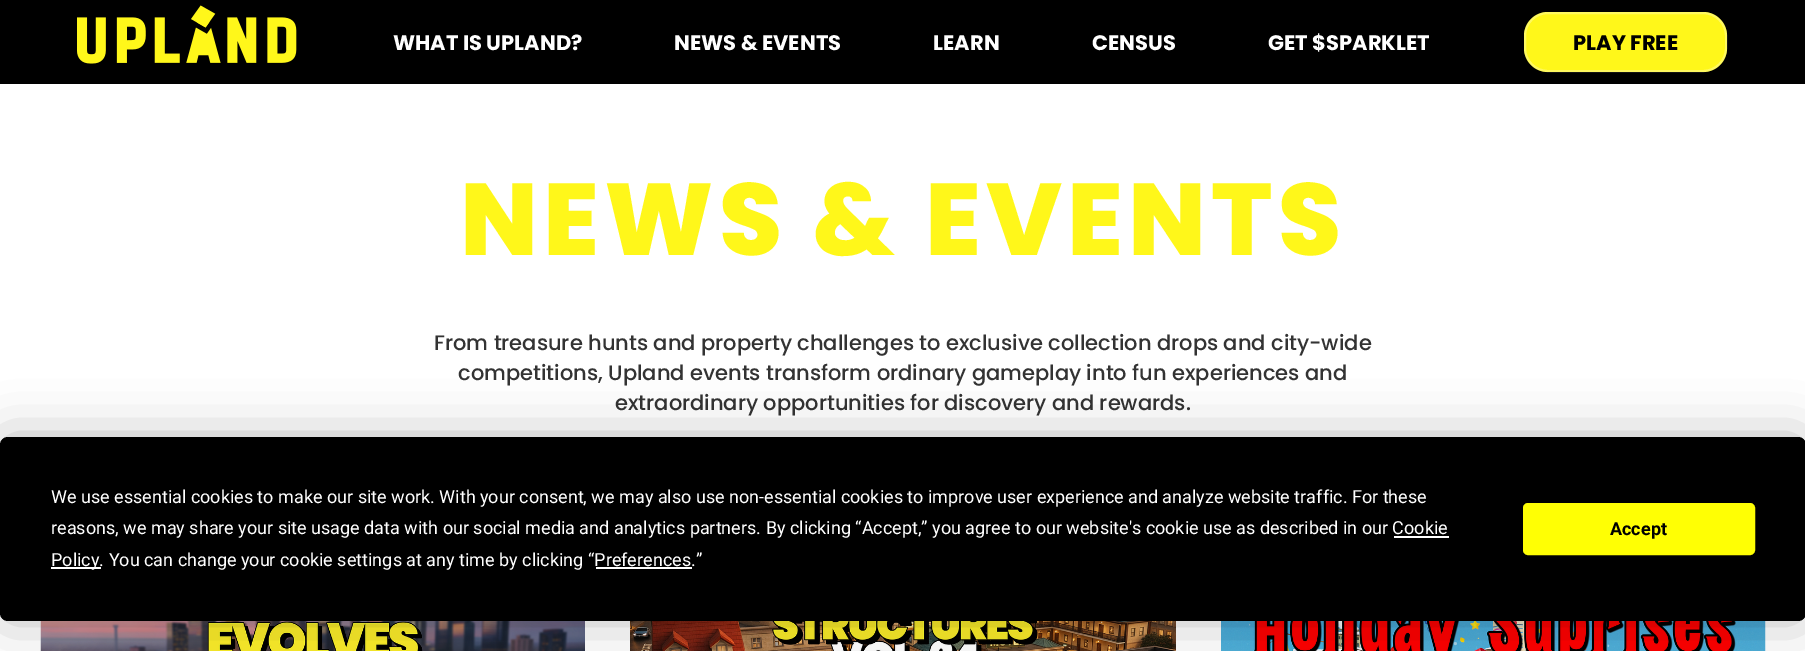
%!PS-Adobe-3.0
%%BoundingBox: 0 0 1805 651
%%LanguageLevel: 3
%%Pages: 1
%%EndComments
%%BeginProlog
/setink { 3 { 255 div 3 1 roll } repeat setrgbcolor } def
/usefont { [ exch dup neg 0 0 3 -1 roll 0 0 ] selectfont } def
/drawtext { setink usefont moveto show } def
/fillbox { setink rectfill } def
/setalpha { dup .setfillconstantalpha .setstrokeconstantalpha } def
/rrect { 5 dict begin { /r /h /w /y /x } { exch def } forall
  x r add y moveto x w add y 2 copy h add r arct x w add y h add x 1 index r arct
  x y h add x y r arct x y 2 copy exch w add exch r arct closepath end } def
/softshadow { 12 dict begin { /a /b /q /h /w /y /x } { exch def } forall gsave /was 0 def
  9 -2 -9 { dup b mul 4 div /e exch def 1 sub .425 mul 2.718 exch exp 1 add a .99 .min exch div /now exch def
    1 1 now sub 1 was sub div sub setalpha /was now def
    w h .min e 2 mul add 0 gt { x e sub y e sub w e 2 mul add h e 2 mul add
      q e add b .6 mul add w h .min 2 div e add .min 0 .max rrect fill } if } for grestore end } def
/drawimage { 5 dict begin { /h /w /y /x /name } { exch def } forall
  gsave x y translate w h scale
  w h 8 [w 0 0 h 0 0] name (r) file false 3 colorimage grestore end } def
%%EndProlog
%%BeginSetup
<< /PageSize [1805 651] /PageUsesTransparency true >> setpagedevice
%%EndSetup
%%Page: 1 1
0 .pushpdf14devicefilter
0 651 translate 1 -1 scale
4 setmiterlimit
0 0 1805 651 255 255 255 fillbox
0 0 1805 84 0 0 0 fillbox
(assets/img1.rgb) 77 5 220 59 drawimage
(WHAT IS UPLAND?) 393 50 /Poppins-Bold 21 255 255 255 drawtext
(NEWS & EVENTS) 674 50 /Poppins-Bold 21 255 255 255 drawtext
(LEARN) 933 50 /Poppins-Bold 21 255 255 255 drawtext
(CENSUS) 1092 50 /Poppins-Bold 21 255 255 255 drawtext
(GET $SPARKLET) 1268 50 /Poppins-Bold 21 255 255 255 drawtext
255 247 26 setink
1524 12 203 60 24 rrect fill
0.3 setalpha
255 255 255 setink
2 setlinewidth
1525 13 201 58 23 rrect stroke
1 setalpha
(PLAY FREE) 1573 50 /Poppins-Bold 21 0 0 0 drawtext
/Poppins-ExtraBold 102 usefont
255 247 26 setink
460 255 moveto 5.1 0 (NEWS & EVENTS) ashow
(From treasure hunts and property challenges to exclusive collection drops and city-wide) 434 350 /Poppins-Medium 21 51 51 51 drawtext
(competitions, Upland events transform ordinary gameplay into fun experiences and) 458 380 /Poppins-Medium 21 51 51 51 drawtext
(extraordinary opportunities for discovery and rewards.) 615 410 /Poppins-Medium 21 51 51 51 drawtext
(assets/img2.rgb) 40 621 545 30 drawimage
(assets/img3.rgb) 630 621 546 30 drawimage
(assets/img4.rgb) 1221 621 545 30 drawimage
0 0 0 setink
0 437 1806 184 8 26 0.25 softshadow
0 437 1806 184 8 rrect fill
(We use essential cookies to make our site work. With your consent, we may also use non-essential cookies to improve user experience and analyze website traffic. For these) 51 503 /Roboto-Regular 18 255 255 255 drawtext
(reasons, we may share your site usage data with our social media and analytics partners. By clicking “Accept,” you agree to our website's cookie use as described in our Cookie) 51 534 /Roboto-Regular 18 255 255 255 drawtext
51 567 50 2 255 255 255 fillbox
(Policy. You can change your cookie settings at any time by clicking “Preferences.”) 51 566 /Roboto-Regular 18 255 255 255 drawtext
1394 536 55 2 255 255 255 fillbox
596 567 96 2 255 255 255 fillbox
255 255 4 setink
1524 504 230 50 4 rrect gsave fill grestore
stroke
(Accept) 1610 535 /Roboto-Bold 18 0 0 0 drawtext
.poppdf14devicefilter showpage
%%EOF
